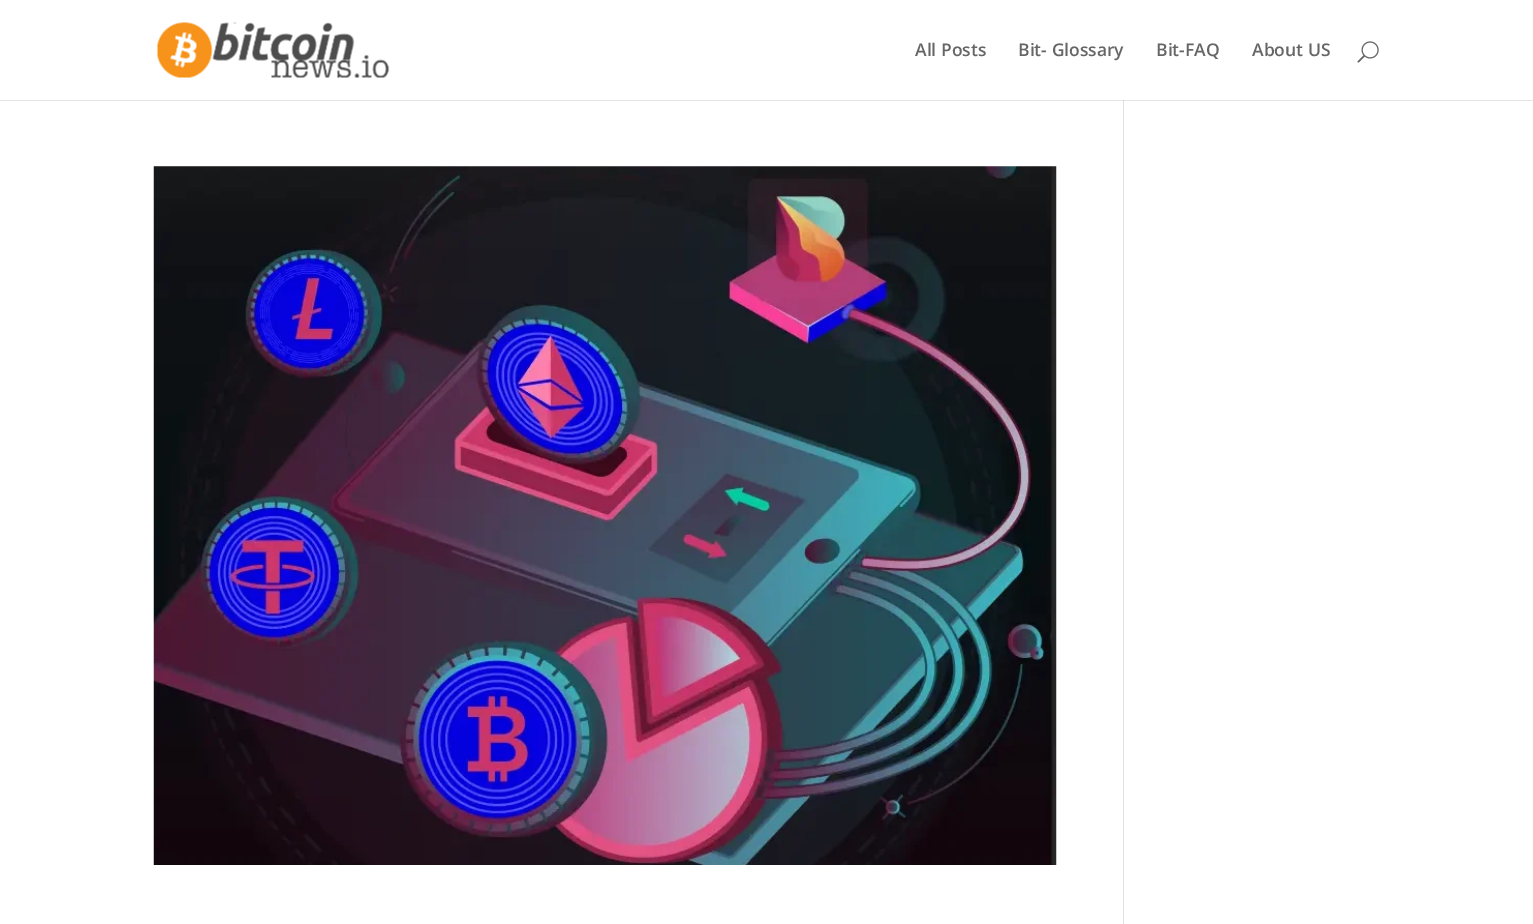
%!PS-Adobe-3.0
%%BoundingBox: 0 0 1533 924
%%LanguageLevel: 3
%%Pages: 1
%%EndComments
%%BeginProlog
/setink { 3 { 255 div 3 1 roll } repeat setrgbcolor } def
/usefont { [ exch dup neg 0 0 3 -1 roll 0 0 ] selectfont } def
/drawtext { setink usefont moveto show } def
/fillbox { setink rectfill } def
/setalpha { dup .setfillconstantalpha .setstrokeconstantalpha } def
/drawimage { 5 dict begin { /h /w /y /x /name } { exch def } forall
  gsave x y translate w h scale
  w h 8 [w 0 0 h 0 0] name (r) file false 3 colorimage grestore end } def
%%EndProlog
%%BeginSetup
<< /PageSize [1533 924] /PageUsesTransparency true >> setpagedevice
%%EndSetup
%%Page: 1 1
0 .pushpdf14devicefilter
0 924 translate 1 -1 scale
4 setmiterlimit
0 0 1533 924 255 255 255 fillbox
1123 94 1 830 226 226 226 fillbox
0.1 setalpha
0 0 0 setink
0 100 moveto 0 101 lineto 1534 101 lineto 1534 1 lineto 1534 100 lineto closepath fill
1 setalpha
1123 94 1 6 255 255 255 fillbox
(assets/img1.rgb) 157 22 233 56 drawimage
(All Posts) 915 56 /OpenSans-SemiBold 17.5 102 102 102 drawtext
(Bit- Glossary) 1018 56 /OpenSans-SemiBold 17.5 102 102 102 drawtext
(Bit-FAQ) 1156 56 /OpenSans-SemiBold 17.5 102 102 102 drawtext
(About US) 1252 56 /OpenSans-SemiBold 17.5 102 102 102 drawtext
(assets/img2.rgb) 1357 41 22 22 drawimage
(assets/img3.rgb) 153 166 904 699 drawimage
.poppdf14devicefilter showpage
%%EOF
